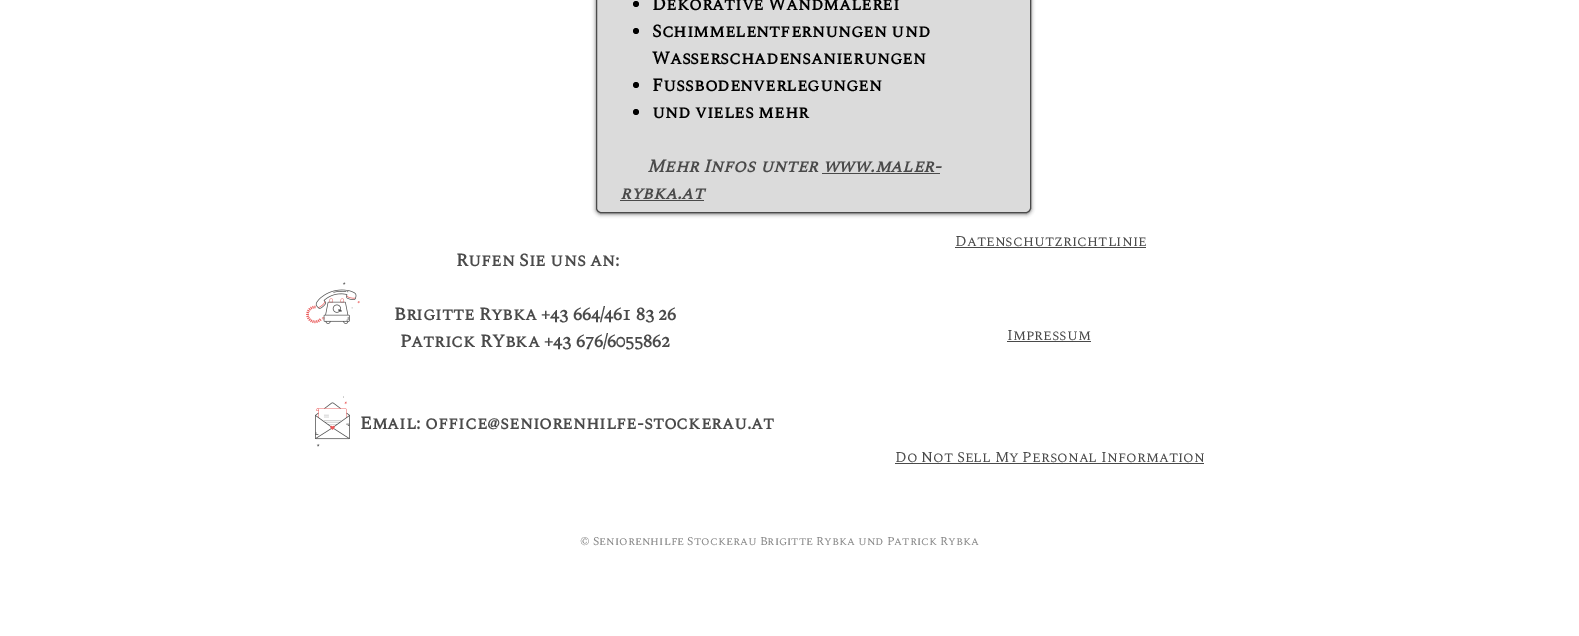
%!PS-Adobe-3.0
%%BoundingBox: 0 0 1579 636
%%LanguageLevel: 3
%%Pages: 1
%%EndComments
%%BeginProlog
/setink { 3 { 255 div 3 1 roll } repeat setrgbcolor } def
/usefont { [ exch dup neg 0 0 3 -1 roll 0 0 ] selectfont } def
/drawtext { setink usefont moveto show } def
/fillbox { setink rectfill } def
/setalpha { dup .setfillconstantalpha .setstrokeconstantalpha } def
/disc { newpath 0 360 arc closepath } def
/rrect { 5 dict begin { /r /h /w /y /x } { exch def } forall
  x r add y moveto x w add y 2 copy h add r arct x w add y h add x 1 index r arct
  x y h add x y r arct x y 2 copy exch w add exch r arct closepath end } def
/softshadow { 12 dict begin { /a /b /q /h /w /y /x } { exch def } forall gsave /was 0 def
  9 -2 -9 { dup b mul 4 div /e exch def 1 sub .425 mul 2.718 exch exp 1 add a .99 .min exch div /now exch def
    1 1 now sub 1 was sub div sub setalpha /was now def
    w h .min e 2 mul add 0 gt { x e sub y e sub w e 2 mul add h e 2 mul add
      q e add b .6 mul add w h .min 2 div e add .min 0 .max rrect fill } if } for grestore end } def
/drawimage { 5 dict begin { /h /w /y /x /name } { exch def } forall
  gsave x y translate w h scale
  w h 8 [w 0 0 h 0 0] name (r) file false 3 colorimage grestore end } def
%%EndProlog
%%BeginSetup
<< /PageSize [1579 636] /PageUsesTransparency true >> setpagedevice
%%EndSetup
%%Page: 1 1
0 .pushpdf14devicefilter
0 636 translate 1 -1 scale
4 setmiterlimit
0 0 1579 636 255 255 255 fillbox
0 0 0 setink
596 -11 435 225 5 2 0.6 softshadow
219 219 219 setink
596.5 -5.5 434 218 4.5 rrect gsave fill grestore
74 74 74 setink
stroke
0 0 0 setink
636 4 3 disc fill
(Dekorative Wandmalerei) 652 10 /SpectralSC-Bold 18 0 0 0 drawtext
636 31 3 disc fill
(Schimmelentfernungen und) 652 37 /SpectralSC-Bold 18 0 0 0 drawtext
(Wasserschadensanierungen) 652 64 /SpectralSC-Bold 18 0 0 0 drawtext
636 85 3 disc fill
(Fußbodenverlegungen) 652 91 /SpectralSC-Bold 18 0 0 0 drawtext
636 112 3 disc fill
(und vieles mehr) 652 118 /SpectralSC-Bold 18 0 0 0 drawtext
(Mehr Infos unter www.maler-) 647 172 /SpectralSC-BoldItalic 18 74 74 74 drawtext
822 173 118 1 74 74 74 fillbox
(rybka.at) 620 199 /SpectralSC-BoldItalic 18 74 74 74 drawtext
620 200 84 1 74 74 74 fillbox
(Datenschutzrichtlinie) 955 246 /SpectralSC-Regular 15 74 74 74 drawtext
955 247 191 1 74 74 74 fillbox
(assets/img1.rgb) 306 282 54 42 drawimage
(Rufen Sie uns an:) 456 266 /SpectralSC-Bold 18 74 74 74 drawtext
(Brigitte Rybka +43 664/461 83 26) 394 320 /SpectralSC-Bold 18 74 74 74 drawtext
(Patrick RYbka +43 676/6055862) 400 347 /SpectralSC-Bold 18 74 74 74 drawtext
(Impressum) 1007 340 /SpectralSC-Regular 15 74 74 74 drawtext
1007 341 84 1 74 74 74 fillbox
(assets/img2.rgb) 315 396 35 51 drawimage
(Email: office@seniorenhilfe-stockerau.at) 360 429 /SpectralSC-Bold 18 74 74 74 drawtext
(Do Not Sell My Personal Information) 895 462 /SpectralSC-Regular 15 74 74 74 drawtext
895 463 309 1 74 74 74 fillbox
(© Seniorenhilfe Stockerau Brigitte Rybka und Patrick Rybka) 580 545 /SpectralSC-Regular 12 134 134 134 drawtext
.poppdf14devicefilter showpage
%%EOF
